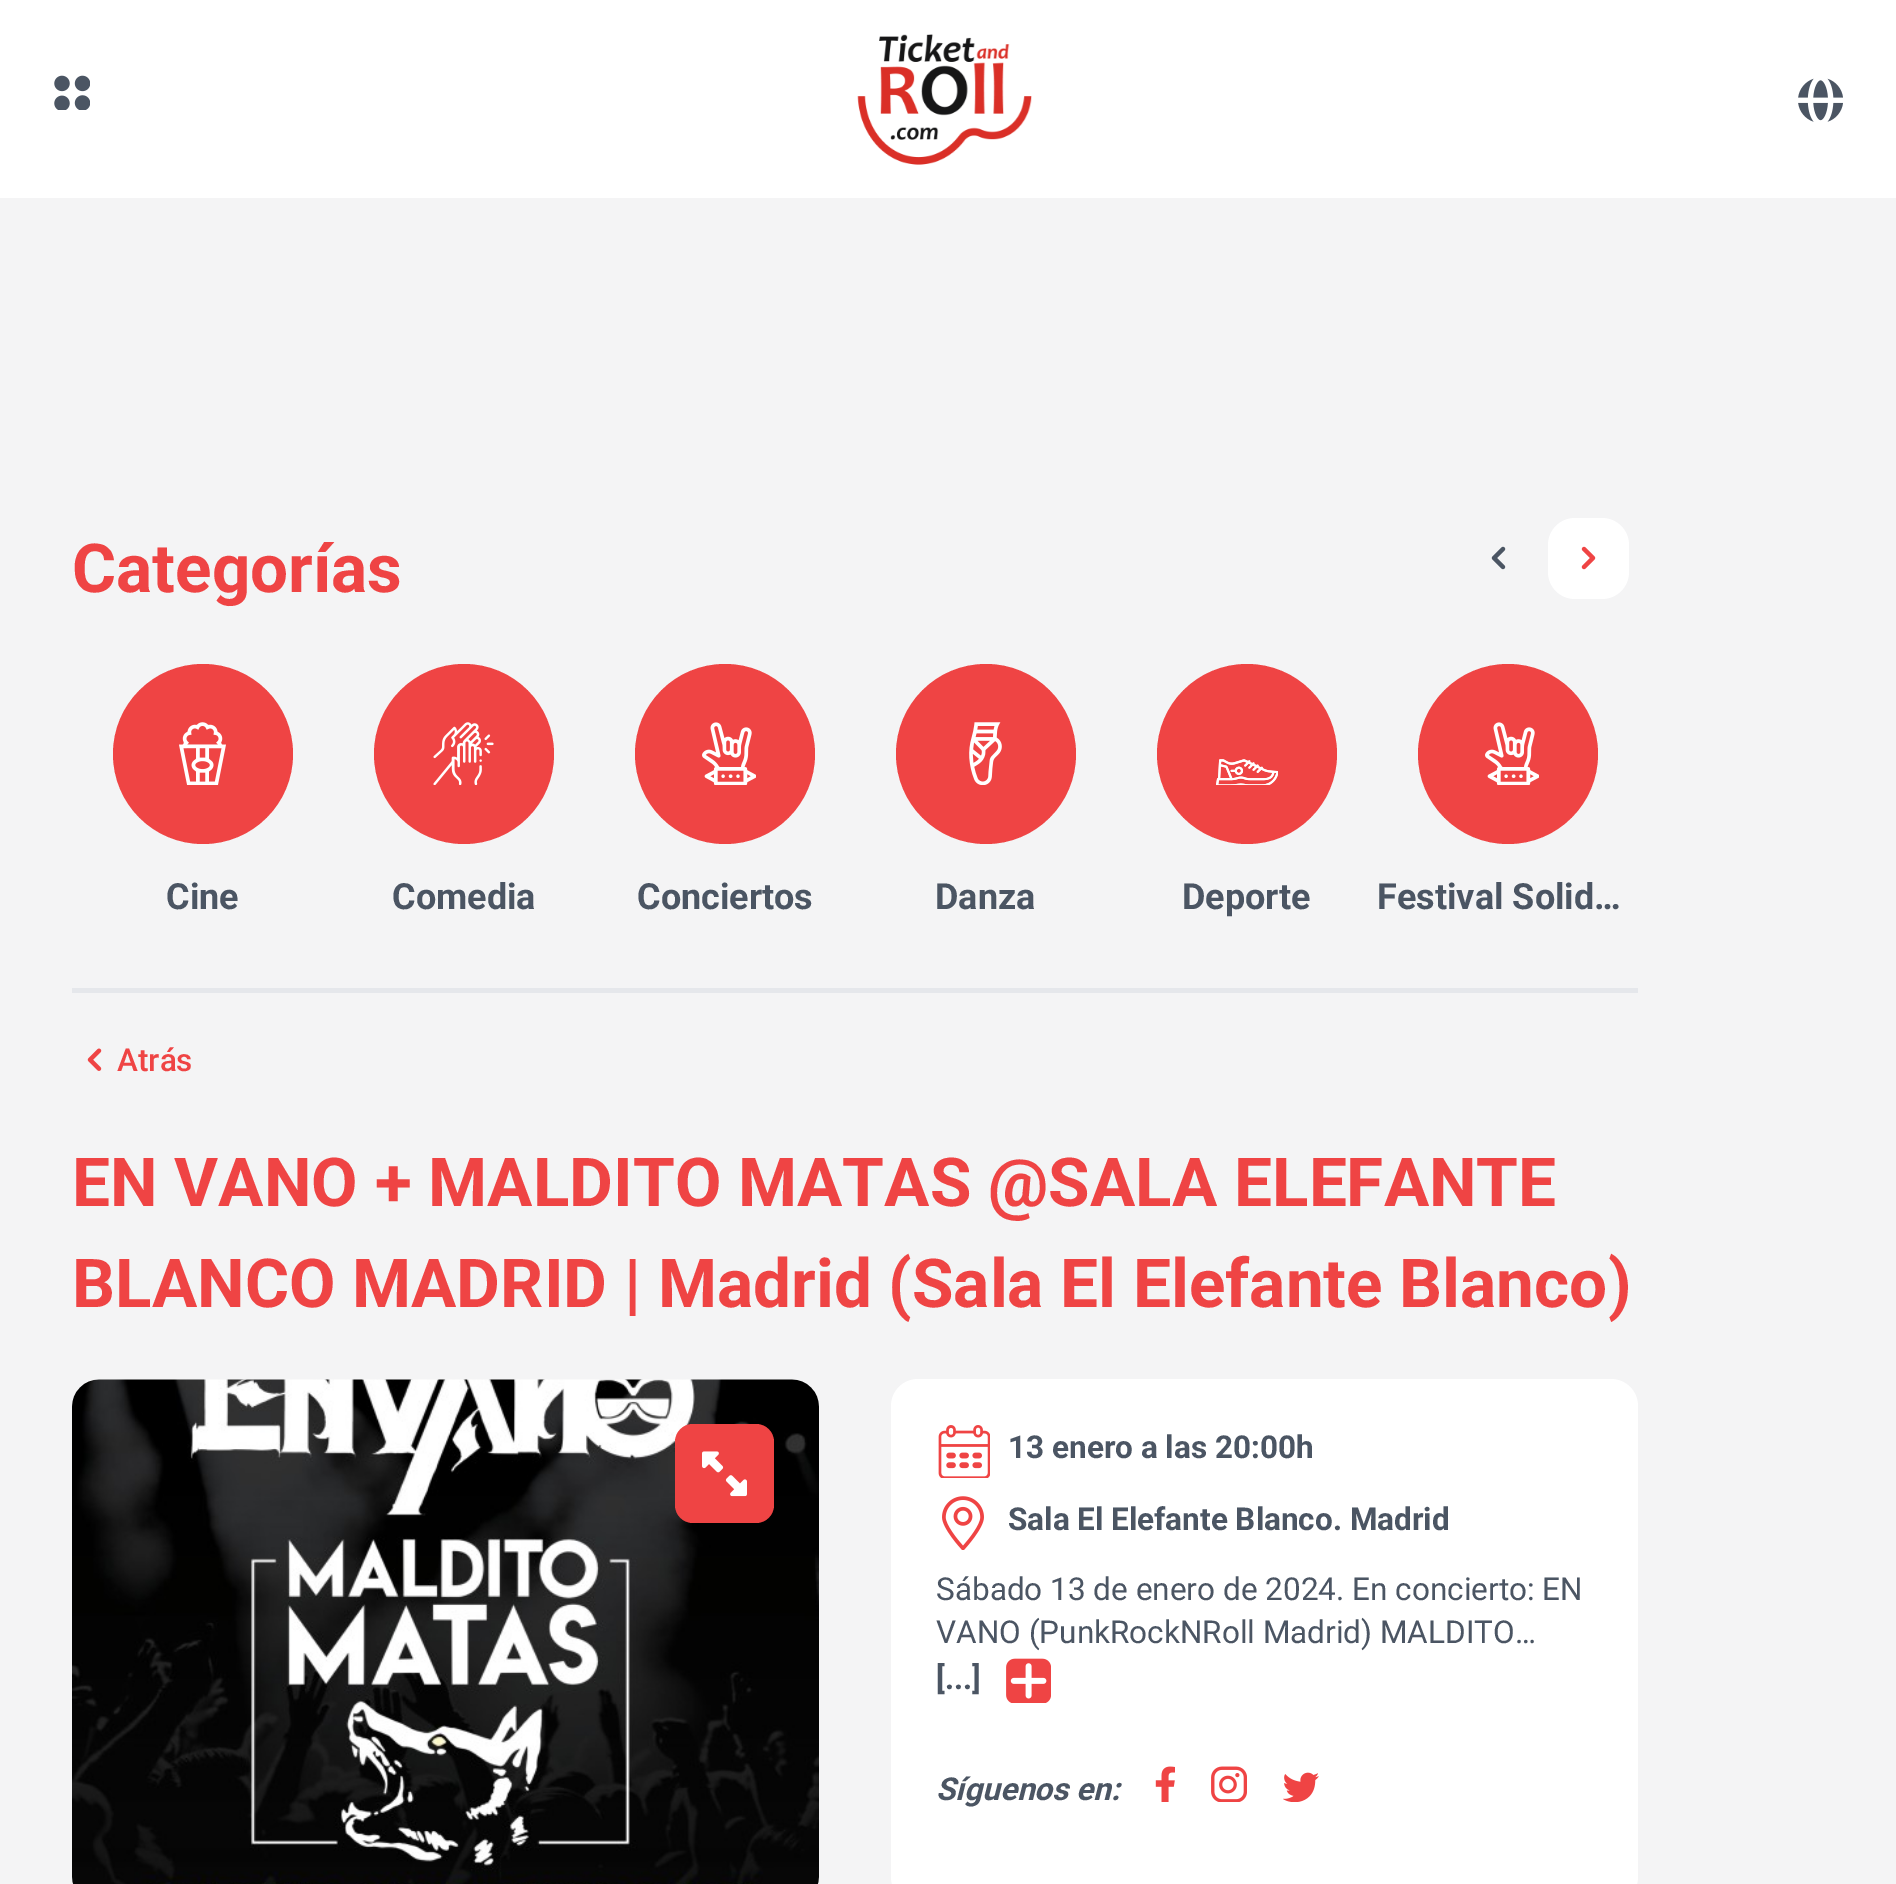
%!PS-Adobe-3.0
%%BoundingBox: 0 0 1896 1884
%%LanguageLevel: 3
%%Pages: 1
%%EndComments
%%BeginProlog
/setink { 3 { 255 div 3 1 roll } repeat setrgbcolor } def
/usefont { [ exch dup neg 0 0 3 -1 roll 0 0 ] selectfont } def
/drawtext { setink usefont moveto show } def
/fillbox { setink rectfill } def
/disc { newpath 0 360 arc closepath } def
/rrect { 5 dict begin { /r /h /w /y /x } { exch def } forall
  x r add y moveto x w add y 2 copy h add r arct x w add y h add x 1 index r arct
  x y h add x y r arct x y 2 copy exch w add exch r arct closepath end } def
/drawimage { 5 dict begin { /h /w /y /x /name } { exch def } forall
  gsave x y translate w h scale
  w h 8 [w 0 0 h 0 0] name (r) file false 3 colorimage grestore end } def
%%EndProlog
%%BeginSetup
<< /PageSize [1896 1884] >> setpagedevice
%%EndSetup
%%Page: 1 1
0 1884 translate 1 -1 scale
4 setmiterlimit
0 0 1896 1884 244 244 245 fillbox
0 0 1896 198 255 255 255 fillbox
(assets/img1.rgb) 54 75 36 35 drawimage
(assets/img2.rgb) 857 34 175 131 drawimage
(assets/img3.rgb) 1798 78 45 44 drawimage
(Categorías) 72 592 /Roboto-Bold 67.5 239 68 68 drawtext
(assets/img4.rgb) 1491 546 15 24 drawimage
255 255 255 setink
1548 518 81 81 27 rrect fill
(assets/img5.rgb) 1581 546 15 24 drawimage
72 988 1566 5 229 231 235 fillbox
239 68 68 setink
203 754 90 disc fill
(assets/img6.rgb) 179 722 47 63 drawimage
(Cine) 166 909 /Roboto-Bold 36 75 85 99 drawtext
239 68 68 setink
464 754 90 disc fill
(assets/img7.rgb) 433 722 61 63 drawimage
(Comedia) 392 909 /Roboto-Bold 36 75 85 99 drawtext
239 68 68 setink
725 754 90 disc fill
(assets/img8.rgb) 702 722 54 63 drawimage
(Conciertos) 637 909 /Roboto-Bold 36 75 85 99 drawtext
239 68 68 setink
986 754 90 disc fill
(assets/img9.rgb) 969 722 33 63 drawimage
(Danza) 935 909 /Roboto-Bold 36 75 85 99 drawtext
239 68 68 setink
1247 754 90 disc fill
(assets/img10.rgb) 1216 759 62 26 drawimage
(Deporte) 1182 909 /Roboto-Bold 36 75 85 99 drawtext
239 68 68 setink
1508 754 90 disc fill
(assets/img8.rgb) 1485 722 54 63 drawimage
(Festival Solid…) 1377 909 /Roboto-Bold 36 75 85 99 drawtext
(assets/img11.rgb) 87 1048 15 23 drawimage
(Atrás) 117 1071 /Roboto-Medium 31.5 239 68 68 drawtext
(EN VANO + MALDITO MATAS @SALA ELEFANTE) 72 1206 /Roboto-Bold 67.5 239 68 68 drawtext
(BLANCO MADRID | Madrid \(Sala El Elefante Blanco\)) 72 1307 /Roboto-Bold 67.5 239 68 68 drawtext
(assets/img12.rgb) 72 1379 747 505 drawimage
675 1424 99 99 18 rrect fill
(assets/img13.rgb) 702 1451 45 46 drawimage
255 255 255 setink
891 1379 747 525 27 rrect fill
(assets/img14.rgb) 938 1425 52 53 drawimage
(13 enero a las 20:00h) 1008 1458 /Roboto-Bold 31.5 75 85 99 drawtext
(assets/img15.rgb) 942 1496 42 54 drawimage
(Sala El Elefante Blanco. Madrid) 1008 1530 /Roboto-Bold 31.5 75 85 99 drawtext
(Sábado 13 de enero de 2024. En concierto: EN) 936 1600 /Roboto-Regular 31.5 75 85 99 drawtext
(VANO \(PunkRockNRoll Madrid\) MALDITO…) 936 1643 /Roboto-Regular 31.5 75 85 99 drawtext
([...]) 936 1689 /Roboto-Bold 31.5 75 85 99 drawtext
(assets/img16.rgb) 1006 1658 45 45 drawimage
(Síguenos en:) 936 1800 /Roboto-BoldItalic 31.5 75 85 99 drawtext
(assets/img17.rgb) 1155 1766 20 36 drawimage
(assets/img18.rgb) 1211 1766 36 36 drawimage
(assets/img19.rgb) 1283 1772 36 30 drawimage
showpage
%%EOF
